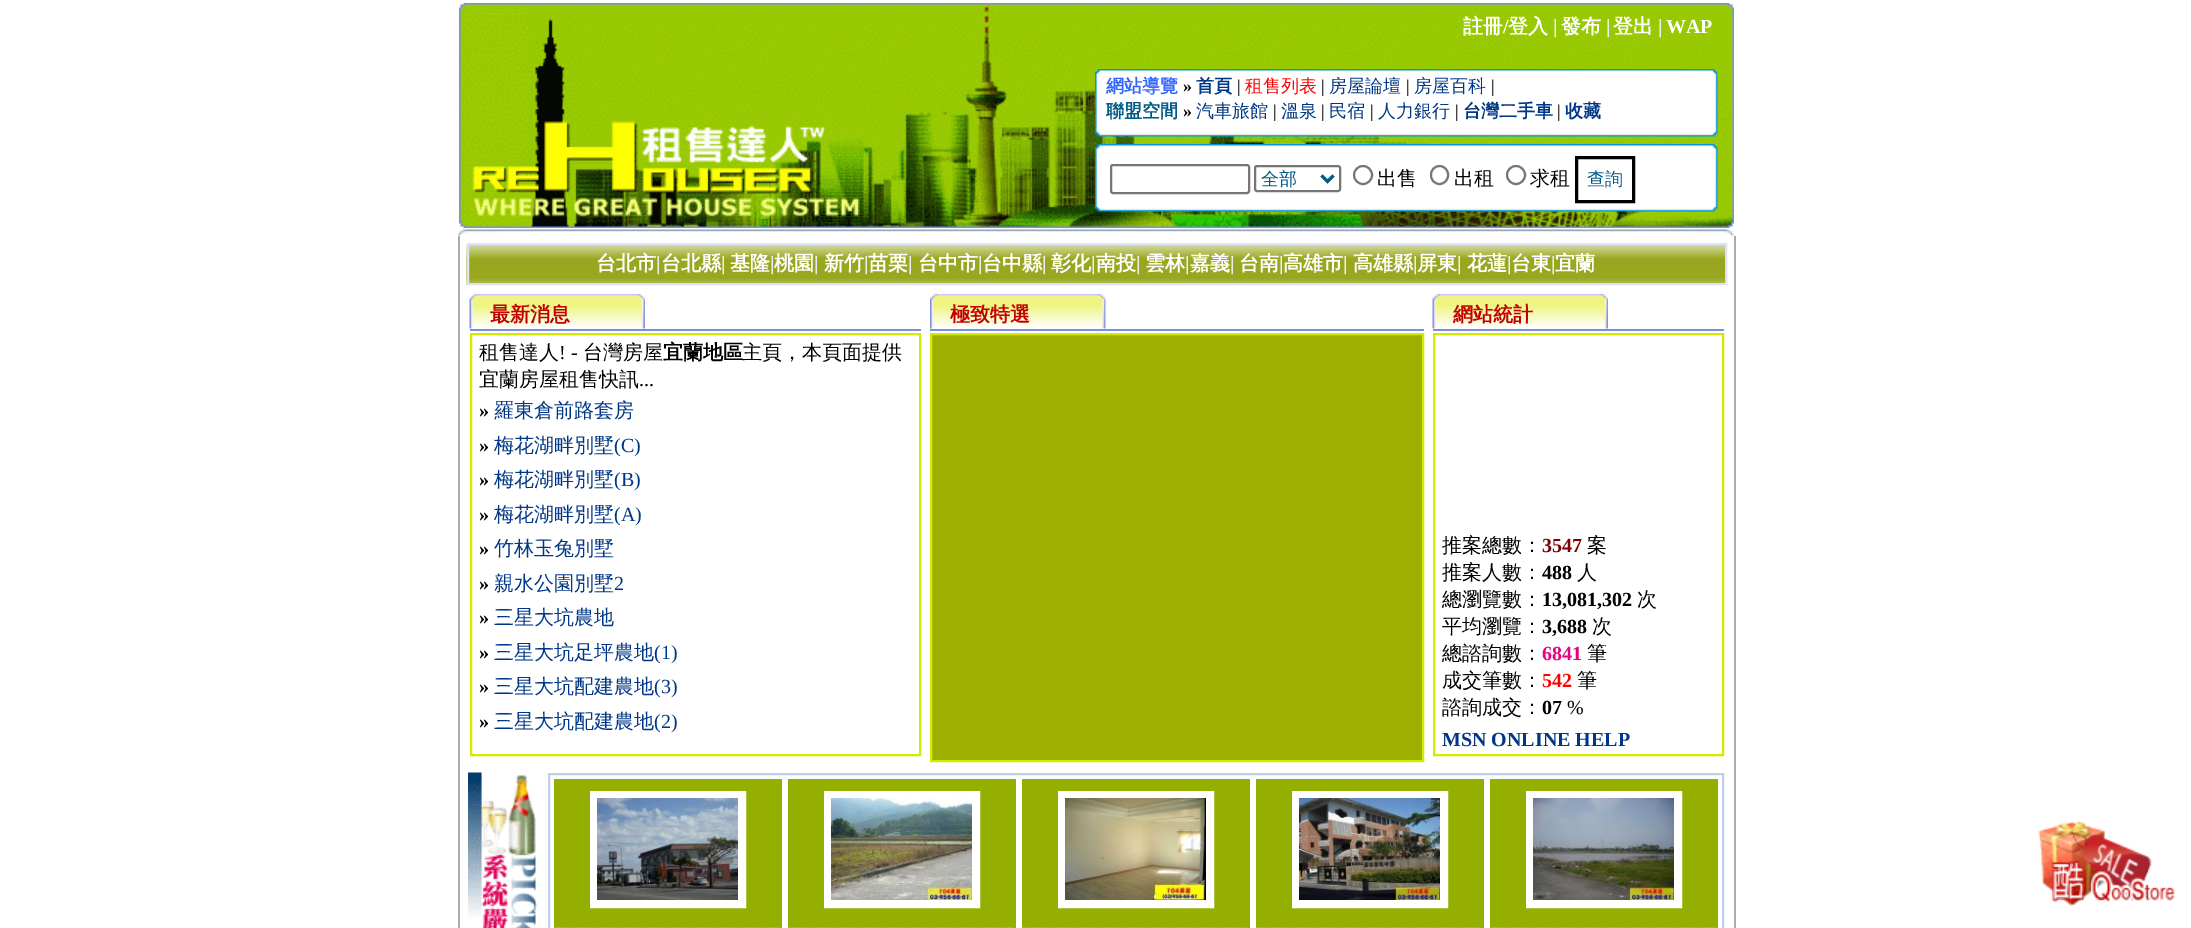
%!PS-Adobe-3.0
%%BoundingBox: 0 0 2191 928
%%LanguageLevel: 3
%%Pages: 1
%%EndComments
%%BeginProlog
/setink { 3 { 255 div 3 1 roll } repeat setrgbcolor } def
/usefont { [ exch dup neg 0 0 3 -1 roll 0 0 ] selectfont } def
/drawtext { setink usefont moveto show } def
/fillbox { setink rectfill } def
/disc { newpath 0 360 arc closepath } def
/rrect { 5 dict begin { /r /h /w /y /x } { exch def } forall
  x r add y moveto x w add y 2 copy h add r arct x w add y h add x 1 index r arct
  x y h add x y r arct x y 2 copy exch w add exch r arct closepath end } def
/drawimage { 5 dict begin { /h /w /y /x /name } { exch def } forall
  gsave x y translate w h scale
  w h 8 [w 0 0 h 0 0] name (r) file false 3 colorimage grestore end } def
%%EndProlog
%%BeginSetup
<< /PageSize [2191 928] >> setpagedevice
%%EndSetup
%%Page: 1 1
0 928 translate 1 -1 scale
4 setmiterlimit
0 0 2191 928 255 255 255 fillbox
(assets/img1.rgb) 459 3 1275 225 drawimage
(註冊) 1463 33 /WenQuanYiZenHei-Bold 20 255 255 255 drawtext
(/) 1503 33 /LiberationSerif-Bold 20 255 255 255 drawtext
(登入) 1508 33 /WenQuanYiZenHei-Bold 20 255 255 255 drawtext
(|) 1553 33 /LiberationSerif-Bold 20 238 238 238 drawtext
(發布) 1561 33 /WenQuanYiZenHei-Bold 20 255 255 255 drawtext
(|) 1606 33 /LiberationSerif-Bold 20 238 238 238 drawtext
(登出) 1613 33 /WenQuanYiZenHei-Bold 20 255 255 255 drawtext
(|) 1658 33 /LiberationSerif-Bold 20 238 238 238 drawtext
(WAP) 1666 33 /LiberationSerif-Bold 20 255 255 255 drawtext
(assets/img2.rgb) 1095 69 623 68 drawimage
(網站導覽) 1106 92 /WenQuanYiZenHei-Bold 18 51 102 255 drawtext
(») 1183 92 /LiberationSerif-Bold 18 0 0 0 drawtext
(首頁) 1196 92 /WenQuanYiZenHei-Bold 18 0 54 135 drawtext
(|) 1237 92 /LiberationSerif-Regular 18 0 0 0 drawtext
(租售列表) 1245 92 /WenQuanYiZenHei-Medium 18 255 0 0 drawtext
(|) 1321 92 /LiberationSerif-Regular 18 0 0 0 drawtext
(房屋論壇) 1329 92 /WenQuanYiZenHei-Medium 18 0 54 135 drawtext
(|) 1406 92 /LiberationSerif-Regular 18 0 0 0 drawtext
(房屋百科) 1414 92 /WenQuanYiZenHei-Medium 18 0 54 135 drawtext
(|) 1491 92 /LiberationSerif-Regular 18 0 0 0 drawtext
(聯盟空間) 1106 117 /WenQuanYiZenHei-Bold 18 0 90 135 drawtext
(») 1183 117 /LiberationSerif-Bold 18 0 0 0 drawtext
(汽車旅館) 1196 117 /WenQuanYiZenHei-Medium 18 0 54 135 drawtext
(|) 1273 117 /LiberationSerif-Regular 18 0 0 0 drawtext
(溫泉) 1281 117 /WenQuanYiZenHei-Medium 18 0 54 135 drawtext
(|) 1321 117 /LiberationSerif-Regular 18 0 0 0 drawtext
(民宿) 1329 117 /WenQuanYiZenHei-Medium 18 0 54 135 drawtext
(|) 1370 117 /LiberationSerif-Regular 18 0 0 0 drawtext
(人力銀行) 1378 117 /WenQuanYiZenHei-Medium 18 0 54 135 drawtext
(|) 1455 117 /LiberationSerif-Regular 18 0 0 0 drawtext
(台灣二手車) 1463 117 /WenQuanYiZenHei-Bold 18 0 54 135 drawtext
(|) 1557 117 /LiberationSerif-Regular 18 0 0 0 drawtext
(收藏) 1565 117 /WenQuanYiZenHei-Bold 18 0 54 135 drawtext
(assets/img3.rgb) 1095 144 623 68 drawimage
118 118 118 setink
2 setlinewidth
1111 165 138 28 2 rrect stroke
1255 166 85 25 2 rrect stroke
0 90 135 setink
3 setlinewidth
1321.5 175.5 moveto 1327.5 181.5 lineto 1333.5 175.5 lineto stroke
(全部) 1261 185 /WenQuanYiZenHei-Medium 18 0 90 135 drawtext
118 118 118 setink
2 setlinewidth
1363 175 9 disc stroke
(出售) 1377 185 /WenQuanYiZenHei-Medium 20 0 0 0 drawtext
118 118 118 setink
1431 166 17 18 8.5 rrect stroke
(出租) 1454 185 /WenQuanYiZenHei-Medium 20 0 0 0 drawtext
118 118 118 setink
1516 175 9 disc stroke
(求租) 1530 185 /WenQuanYiZenHei-Medium 20 0 0 0 drawtext
3 setlinewidth
1576.5 157.5 57 44 rectstroke
(查詢) 1587 185 /WenQuanYiZenHei-Medium 18 0 90 135 drawtext
(assets/img4.rgb) 457 229 1277 7 drawimage
1734 236 2 692 170 170 170 fillbox
458 236 2 692 170 170 170 fillbox
(assets/img5.rgb) 466 244 1259 41 drawimage
223 223 255 setink
2 setlinewidth
468 244 1258 40 rectstroke
(台北市) 596 270 /WenQuanYiZenHei-Bold 20 255 255 255 drawtext
(|) 656 270 /LiberationSerif-Bold 20 238 238 238 drawtext
(台北縣) 661 270 /WenQuanYiZenHei-Bold 20 255 255 255 drawtext
(|) 721 270 /LiberationSerif-Bold 20 238 238 238 drawtext
(基隆) 730 270 /WenQuanYiZenHei-Bold 20 255 255 255 drawtext
(|) 770 270 /LiberationSerif-Bold 20 238 238 238 drawtext
(桃園) 774 270 /WenQuanYiZenHei-Bold 20 255 255 255 drawtext
(|) 814 270 /LiberationSerif-Bold 20 238 238 238 drawtext
(新竹) 824 270 /WenQuanYiZenHei-Bold 20 255 255 255 drawtext
(|) 864 270 /LiberationSerif-Bold 20 238 238 238 drawtext
(苗栗) 868 270 /WenQuanYiZenHei-Bold 20 255 255 255 drawtext
(|) 908 270 /LiberationSerif-Bold 20 238 238 238 drawtext
(台中市) 918 270 /WenQuanYiZenHei-Bold 20 255 255 255 drawtext
(|) 978 270 /LiberationSerif-Bold 20 238 238 238 drawtext
(台中縣) 982 270 /WenQuanYiZenHei-Bold 20 255 255 255 drawtext
(|) 1042 270 /LiberationSerif-Bold 20 238 238 238 drawtext
(彰化) 1051 270 /WenQuanYiZenHei-Bold 20 255 255 255 drawtext
(|) 1091 270 /LiberationSerif-Bold 20 238 238 238 drawtext
(南投) 1096 270 /WenQuanYiZenHei-Bold 20 255 255 255 drawtext
(|) 1136 270 /LiberationSerif-Bold 20 238 238 238 drawtext
(雲林) 1145 270 /WenQuanYiZenHei-Bold 20 255 255 255 drawtext
(|) 1185 270 /LiberationSerif-Bold 20 238 238 238 drawtext
(嘉義) 1190 270 /WenQuanYiZenHei-Bold 20 255 255 255 drawtext
(|) 1230 270 /LiberationSerif-Bold 20 238 238 238 drawtext
(台南) 1239 270 /WenQuanYiZenHei-Bold 20 255 255 255 drawtext
(|) 1279 270 /LiberationSerif-Bold 20 238 238 238 drawtext
(高雄市) 1283 270 /WenQuanYiZenHei-Bold 20 255 255 255 drawtext
(|) 1343 270 /LiberationSerif-Bold 20 238 238 238 drawtext
(高雄縣) 1353 270 /WenQuanYiZenHei-Bold 20 255 255 255 drawtext
(|) 1413 270 /LiberationSerif-Bold 20 238 238 238 drawtext
(屏東) 1417 270 /WenQuanYiZenHei-Bold 20 255 255 255 drawtext
(|) 1457 270 /LiberationSerif-Bold 20 238 238 238 drawtext
(花蓮) 1467 270 /WenQuanYiZenHei-Bold 20 255 255 255 drawtext
(|) 1507 270 /LiberationSerif-Bold 20 238 238 238 drawtext
(台東) 1511 270 /WenQuanYiZenHei-Bold 20 255 255 255 drawtext
(|) 1551 270 /LiberationSerif-Bold 20 238 238 238 drawtext
(宜蘭) 1555 270 /WenQuanYiZenHei-Bold 20 255 255 255 drawtext
(assets/img6.rgb) 469 294 176 35 drawimage
470 329 451 2 126 142 222 fillbox
(最新消息) 490 321 /WenQuanYiZenHei-Bold 20 196 0 0 drawtext
211 235 0 setink
471 334 449 421 rectstroke
(租售達人) 479 359 /WenQuanYiZenHei-Medium 20 0 0 0 drawtext
(! -) 559 359 /LiberationSerif-Regular 20 0 0 0 drawtext
(台灣房屋) 583 359 /WenQuanYiZenHei-Medium 20 0 0 0 drawtext
(宜蘭地區) 663 359 /WenQuanYiZenHei-Bold 20 0 0 0 drawtext
(主頁，本頁面提供) 742 359 /WenQuanYiZenHei-Medium 20 0 0 0 drawtext
(宜蘭房屋租售快訊) 479 386 /WenQuanYiZenHei-Medium 20 0 0 0 drawtext
(...) 639 386 /LiberationSerif-Regular 20 0 0 0 drawtext
(») 479 417 /LiberationSerif-Bold 20 0 0 0 drawtext
(羅東倉前路套房) 494 417 /WenQuanYiZenHei-Medium 20 0 54 135 drawtext
(») 479 452 /LiberationSerif-Bold 20 0 0 0 drawtext
(梅花湖畔別墅) 494 452 /WenQuanYiZenHei-Medium 20 0 54 135 drawtext
(\(C\)) 614 452 /LiberationSerif-Regular 20 0 54 135 drawtext
(») 479 486 /LiberationSerif-Bold 20 0 0 0 drawtext
(梅花湖畔別墅) 494 486 /WenQuanYiZenHei-Medium 20 0 54 135 drawtext
(\(B\)) 614 486 /LiberationSerif-Regular 20 0 54 135 drawtext
(») 479 521 /LiberationSerif-Bold 20 0 0 0 drawtext
(梅花湖畔別墅) 494 521 /WenQuanYiZenHei-Medium 20 0 54 135 drawtext
(\(A\)) 614 521 /LiberationSerif-Regular 20 0 54 135 drawtext
(») 479 555 /LiberationSerif-Bold 20 0 0 0 drawtext
(竹林玉兔別墅) 494 555 /WenQuanYiZenHei-Medium 20 0 54 135 drawtext
(») 479 590 /LiberationSerif-Bold 20 0 0 0 drawtext
(親水公園別墅) 494 590 /WenQuanYiZenHei-Medium 20 0 54 135 drawtext
(2) 614 590 /LiberationSerif-Regular 20 0 54 135 drawtext
(») 479 624 /LiberationSerif-Bold 20 0 0 0 drawtext
(三星大坑農地) 494 624 /WenQuanYiZenHei-Medium 20 0 54 135 drawtext
(») 479 659 /LiberationSerif-Bold 20 0 0 0 drawtext
(三星大坑足坪農地) 494 659 /WenQuanYiZenHei-Medium 20 0 54 135 drawtext
(\(1\)) 654 659 /LiberationSerif-Regular 20 0 54 135 drawtext
(») 479 693 /LiberationSerif-Bold 20 0 0 0 drawtext
(三星大坑配建農地) 494 693 /WenQuanYiZenHei-Medium 20 0 54 135 drawtext
(\(3\)) 654 693 /LiberationSerif-Regular 20 0 54 135 drawtext
(») 479 728 /LiberationSerif-Bold 20 0 0 0 drawtext
(三星大坑配建農地) 494 728 /WenQuanYiZenHei-Medium 20 0 54 135 drawtext
(\(2\)) 654 728 /LiberationSerif-Regular 20 0 54 135 drawtext
(assets/img7.rgb) 930 294 176 35 drawimage
930 329 494 2 126 142 222 fillbox
(極致特選) 950 321 /WenQuanYiZenHei-Bold 20 196 0 0 drawtext
157 175 0 setink
931 334 moveto 1423 334 lineto 1423 761 lineto 931 761 lineto closepath gsave fill grestore
211 235 0 setink
stroke
(assets/img6.rgb) 1432 294 176 35 drawimage
1433 329 291 2 126 142 222 fillbox
(網站統計) 1453 321 /WenQuanYiZenHei-Bold 20 196 0 0 drawtext
211 235 0 setink
1434 334 289 421 rectstroke
(推案總數：) 1442 552 /WenQuanYiZenHei-Medium 20 0 0 0 drawtext
(3547) 1542 552 /LiberationSerif-Bold 20 128 0 0 drawtext
(案) 1587 552 /WenQuanYiZenHei-Medium 20 0 0 0 drawtext
(推案人數：) 1442 579 /WenQuanYiZenHei-Medium 20 0 0 0 drawtext
(488) 1542 579 /LiberationSerif-Bold 20 0 0 0 drawtext
(人) 1577 579 /WenQuanYiZenHei-Medium 20 0 0 0 drawtext
(總瀏覽數：) 1442 606 /WenQuanYiZenHei-Medium 20 0 0 0 drawtext
(13,081,302) 1542 606 /LiberationSerif-Bold 20 0 0 0 drawtext
(次) 1637 606 /WenQuanYiZenHei-Medium 20 0 0 0 drawtext
(平均瀏覽：) 1442 633 /WenQuanYiZenHei-Medium 20 0 0 0 drawtext
(3,688) 1542 633 /LiberationSerif-Bold 20 0 0 0 drawtext
(次) 1592 633 /WenQuanYiZenHei-Medium 20 0 0 0 drawtext
(總諮詢數：) 1442 660 /WenQuanYiZenHei-Medium 20 0 0 0 drawtext
(6841) 1542 660 /LiberationSerif-Bold 20 233 0 128 drawtext
(筆) 1587 660 /WenQuanYiZenHei-Medium 20 0 0 0 drawtext
(成交筆數：) 1442 687 /WenQuanYiZenHei-Medium 20 0 0 0 drawtext
(542) 1542 687 /LiberationSerif-Bold 20 255 0 0 drawtext
(筆) 1577 687 /WenQuanYiZenHei-Medium 20 0 0 0 drawtext
(諮詢成交：) 1442 714 /WenQuanYiZenHei-Medium 20 0 0 0 drawtext
(07) 1542 714 /LiberationSerif-Bold 20 0 0 0 drawtext
(%) 1567 714 /LiberationSerif-Regular 20 0 0 0 drawtext
(MSN ONLINE HELP) 1442 746 /LiberationSerif-Bold 20 0 54 135 drawtext
(assets/img8.rgb) 468 772 70 156 drawimage
190 207 230 setink
549 774 1174 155 rectstroke
554 779 228 149 149 175 0 fillbox
255 255 255 setink
8 setlinewidth
594 795 148 109 rectstroke
(assets/img9.rgb) 597 798 141 102 drawimage
204 215 0 setink
1.5 setlinewidth
[1.5 1.5] 0 setdash
555 928 moveto 780 928 lineto stroke
788 779 228 149 149 175 0 fillbox
255 255 255 setink
8 setlinewidth
[] 0 setdash
828 795 148 109 rectstroke
(assets/img10.rgb) 831 798 141 102 drawimage
204 215 0 setink
1.5 setlinewidth
[1.5 1.5] 0 setdash
789 928 moveto 1014 928 lineto stroke
1022 779 228 149 149 175 0 fillbox
255 255 255 setink
8 setlinewidth
[] 0 setdash
1062 795 148 109 rectstroke
(assets/img11.rgb) 1065 798 141 102 drawimage
204 215 0 setink
1.5 setlinewidth
[1.5 1.5] 0 setdash
1023 928 moveto 1248 928 lineto stroke
1256 779 228 149 149 175 0 fillbox
255 255 255 setink
8 setlinewidth
[] 0 setdash
1296 795 148 109 rectstroke
(assets/img12.rgb) 1299 798 141 102 drawimage
204 215 0 setink
1.5 setlinewidth
[1.5 1.5] 0 setdash
1257 928 moveto 1482 928 lineto stroke
1490 779 228 149 149 175 0 fillbox
255 255 255 setink
8 setlinewidth
[] 0 setdash
1530 795 148 109 rectstroke
(assets/img13.rgb) 1533 798 141 102 drawimage
204 215 0 setink
1.5 setlinewidth
[1.5 1.5] 0 setdash
1491 928 moveto 1716 928 lineto stroke
(assets/img14.rgb) 2038 822 138 85 drawimage
showpage
%%EOF
